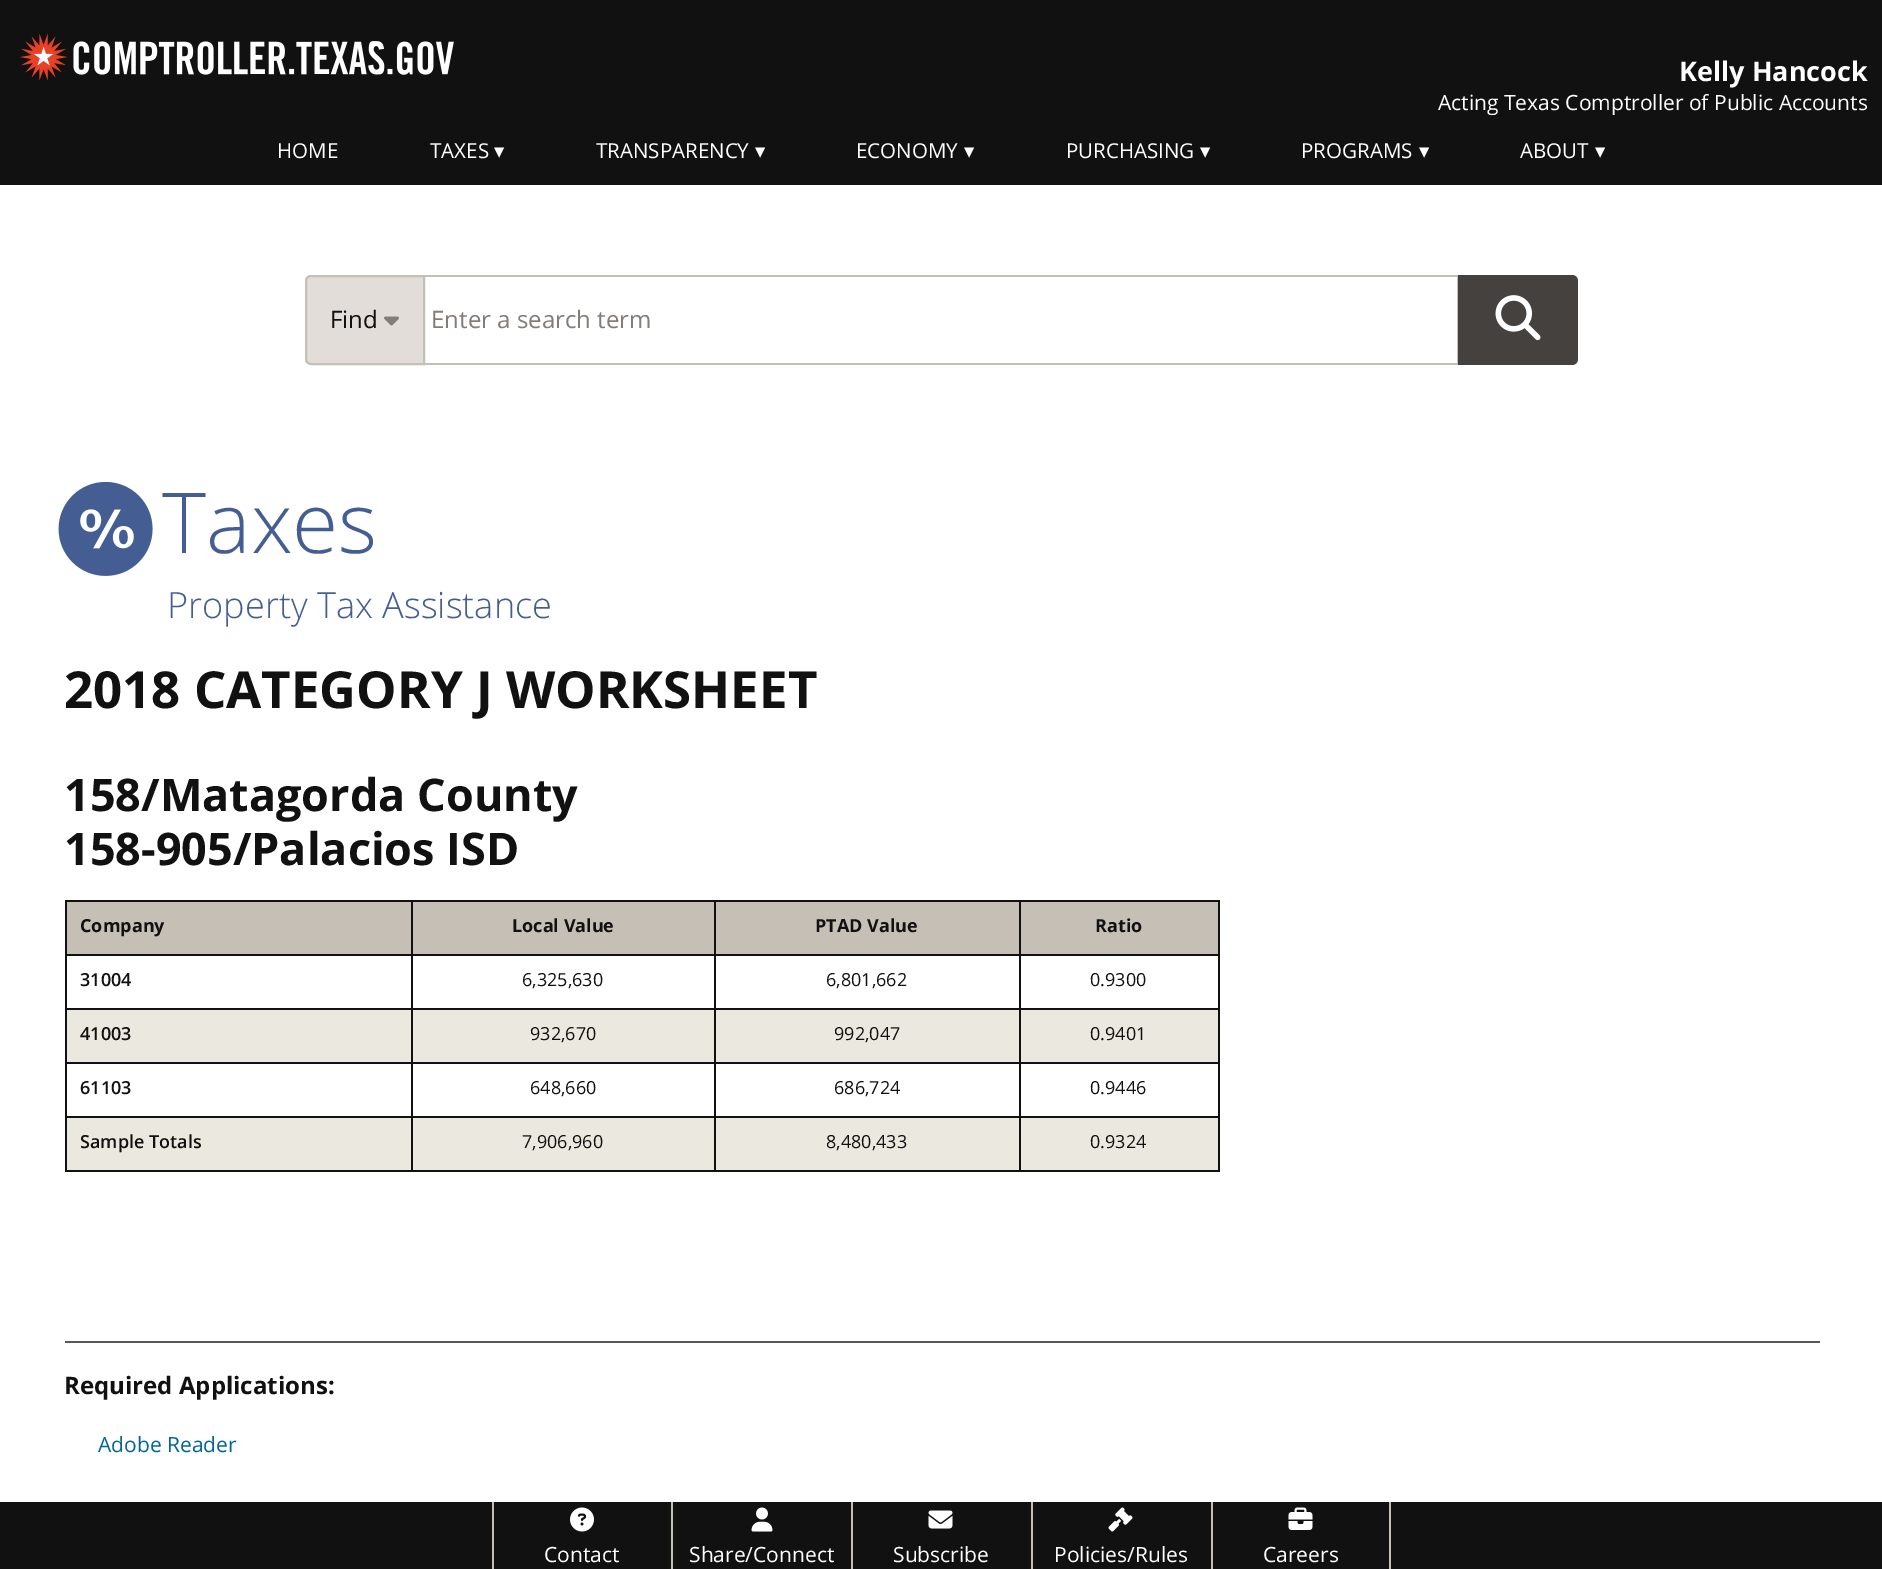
%!PS-Adobe-3.0
%%BoundingBox: 0 0 1882 1569
%%LanguageLevel: 3
%%Pages: 1
%%EndComments
%%BeginProlog
/setink { 3 { 255 div 3 1 roll } repeat setrgbcolor } def
/usefont { [ exch dup neg 0 0 3 -1 roll 0 0 ] selectfont } def
/drawtext { setink usefont moveto show } def
/fillbox { setink rectfill } def
/drawimage { 5 dict begin { /h /w /y /x /name } { exch def } forall
  gsave x y translate w h scale
  w h 8 [w 0 0 h 0 0] name (r) file false 3 colorimage grestore end } def
%%EndProlog
%%BeginSetup
<< /PageSize [1882 1569] >> setpagedevice
%%EndSetup
%%Page: 1 1
0 1569 translate 1 -1 scale
4 setmiterlimit
0 0 1882 1569 255 255 255 fillbox
0 0 1882 185 17 17 17 fillbox
(assets/img1.rgb) 20 33 434 48 drawimage
(Kelly Hancock) 1679 81 /OpenSans-Bold 27 255 255 255 drawtext
(Acting Texas Comptroller of Public Accounts) 1438 110 /OpenSans-Regular 21 255 255 255 drawtext
(HOME) 277 158 /OpenSans-Regular 20.5 255 255 255 drawtext
(TAXES) 430 158 /OpenSans-Regular 20.5 255 255 255 drawtext
(▾) 494 158 /DejaVuSans-Regular 20.5 255 255 255 drawtext
(TRANSPARENCY) 596 158 /OpenSans-Regular 20.5 255 255 255 drawtext
(▾) 755 158 /DejaVuSans-Regular 20.5 255 255 255 drawtext
(ECONOMY) 856 158 /OpenSans-Regular 20.5 255 255 255 drawtext
(▾) 964 158 /DejaVuSans-Regular 20.5 255 255 255 drawtext
(PURCHASING) 1066 158 /OpenSans-Regular 20.5 255 255 255 drawtext
(▾) 1200 158 /DejaVuSans-Regular 20.5 255 255 255 drawtext
(PROGRAMS) 1301 158 /OpenSans-Regular 20.5 255 255 255 drawtext
(▾) 1419 158 /DejaVuSans-Regular 20.5 255 255 255 drawtext
(ABOUT) 1520 158 /OpenSans-Regular 20.5 255 255 255 drawtext
(▾) 1595 158 /DejaVuSans-Regular 20.5 255 255 255 drawtext
227 221 218 setink
311 276 moveto 424 276 lineto 424 364 lineto 311 364 lineto 308 364 306 362 306 359 curveto 306 281 lineto 306 278 308 276 311 276 curveto closepath gsave fill grestore
197 191 181 setink
2 setlinewidth
stroke
(Find) 330 328 /OpenSans-Regular 24 17 17 17 drawtext
(assets/img2.rgb) 384 316 15 10 drawimage
425 275 1033 2 197 191 181 fillbox
1457 275 1 90 197 191 181 fillbox
425 363 1033 2 197 191 181 fillbox
(Enter a search term) 431 328 /OpenSans-Regular 24 131 125 122 drawtext
68 65 63 setink
1458 275 moveto 1572 275 lineto 1575.5 275 1578 277.5 1578 281 curveto 1578 359 lineto 1578 362.5 1575.5 365 1572 365 curveto 1458 365 lineto closepath fill
(assets/img3.rgb) 1495 295 46 46 drawimage
(assets/img4.rgb) 58 482 95 94 drawimage
(Taxes) 162 553 /OpenSans-Light 84 68 93 146 drawtext
(Property Tax Assistance) 167 618 /OpenSans-Light 36.1 68 93 146 drawtext
(2018 CATEGORY J WORKSHEET) 64 708 /OpenSans-Bold 51 17 17 17 drawtext
(158/Matagorda County) 64 811 /OpenSans-Bold 45 17 17 17 drawtext
(158-905/Palacios ISD) 64 865 /OpenSans-Bold 45 17 17 17 drawtext
67 902 1151 52 197 191 181 fillbox
1019 900 201 2 17 17 17 fillbox
1019 954 201 2 17 17 17 fillbox
1019 1008 201 2 17 17 17 fillbox
67 1010 1151 52 235 232 224 fillbox
1019 1062 201 2 17 17 17 fillbox
1019 1116 201 2 17 17 17 fillbox
67 1118 1151 52 235 232 224 fillbox
1218 1116 2 56 17 17 17 fillbox
1019 1170 201 2 17 17 17 fillbox
1019 1116 2 56 17 17 17 fillbox
714 1116 306 2 17 17 17 fillbox
1019 1062 2 56 17 17 17 fillbox
714 1062 306 2 17 17 17 fillbox
1019 1008 2 56 17 17 17 fillbox
714 1008 306 2 17 17 17 fillbox
1019 954 2 56 17 17 17 fillbox
714 954 306 2 17 17 17 fillbox
1019 900 2 56 17 17 17 fillbox
714 900 306 2 17 17 17 fillbox
714 1170 306 2 17 17 17 fillbox
714 1116 2 56 17 17 17 fillbox
411 1116 305 2 17 17 17 fillbox
714 1062 2 56 17 17 17 fillbox
411 1062 305 2 17 17 17 fillbox
714 1008 2 56 17 17 17 fillbox
411 1008 305 2 17 17 17 fillbox
714 954 2 56 17 17 17 fillbox
411 954 305 2 17 17 17 fillbox
714 900 2 56 17 17 17 fillbox
411 900 305 2 17 17 17 fillbox
411 1170 305 2 17 17 17 fillbox
411 1116 2 56 17 17 17 fillbox
65 1116 348 2 17 17 17 fillbox
411 1062 2 56 17 17 17 fillbox
65 1062 348 2 17 17 17 fillbox
411 1008 2 56 17 17 17 fillbox
65 1008 348 2 17 17 17 fillbox
411 954 2 56 17 17 17 fillbox
65 954 348 2 17 17 17 fillbox
411 900 2 56 17 17 17 fillbox
65 900 348 2 17 17 17 fillbox
65 1170 348 2 17 17 17 fillbox
65 1116 2 56 17 17 17 fillbox
65 1062 2 56 17 17 17 fillbox
65 1008 2 56 17 17 17 fillbox
65 954 2 56 17 17 17 fillbox
65 900 2 56 17 17 17 fillbox
(Company) 80 932 /OpenSans-Bold 18 17 17 17 drawtext
(Local Value) 512 932 /OpenSans-Bold 18 17 17 17 drawtext
(PTAD Value) 815 932 /OpenSans-Bold 18 17 17 17 drawtext
1218 1062 2 56 17 17 17 fillbox
1218 1008 2 56 17 17 17 fillbox
1218 954 2 56 17 17 17 fillbox
1218 900 2 56 17 17 17 fillbox
(Ratio) 1095 932 /OpenSans-Bold 18 17 17 17 drawtext
(31004) 80 986 /OpenSans-SemiBold 18 17 17 17 drawtext
(6,325,630) 522 986 /OpenSans-Regular 18 17 17 17 drawtext
(6,801,662) 826 986 /OpenSans-Regular 18 17 17 17 drawtext
(0.9300) 1090 986 /OpenSans-Regular 18 17 17 17 drawtext
(41003) 80 1040 /OpenSans-SemiBold 18 17 17 17 drawtext
(932,670) 530 1040 /OpenSans-Regular 18 17 17 17 drawtext
(992,047) 834 1040 /OpenSans-Regular 18 17 17 17 drawtext
(0.9401) 1090 1040 /OpenSans-Regular 18 17 17 17 drawtext
(61103) 80 1094 /OpenSans-SemiBold 18 17 17 17 drawtext
(648,660) 530 1094 /OpenSans-Regular 18 17 17 17 drawtext
(686,724) 834 1094 /OpenSans-Regular 18 17 17 17 drawtext
(0.9446) 1090 1094 /OpenSans-Regular 18 17 17 17 drawtext
(Sample Totals) 80 1148 /OpenSans-SemiBold 18 17 17 17 drawtext
(7,906,960) 522 1148 /OpenSans-Regular 18 17 17 17 drawtext
(8,480,433) 826 1148 /OpenSans-Regular 18 17 17 17 drawtext
(0.9324) 1090 1148 /OpenSans-Regular 18 17 17 17 drawtext
65 1341 1755 2 91 87 85 fillbox
(Required Applications:) 64 1394 /OpenSans-Bold 24 17 17 17 drawtext
(Adobe Reader) 98 1452 /OpenSans-Regular 21 0 102 153 drawtext
0 1502 1882 67 17 17 17 fillbox
671 1502 2 67 197 191 181 fillbox
492 1502 2 67 197 191 181 fillbox
(assets/img5.rgb) 570 1507 24 25 drawimage
(Contact) 544 1562 /OpenSans-Regular 21 255 255 255 drawtext
851 1502 2 67 197 191 181 fillbox
(assets/img6.rgb) 751 1507 22 25 drawimage
(Share/Connect) 689 1562 /OpenSans-Regular 21 255 255 255 drawtext
1031 1502 2 67 197 191 181 fillbox
(assets/img7.rgb) 928 1510 25 19 drawimage
(Subscribe) 893 1562 /OpenSans-Regular 21 255 255 255 drawtext
1211 1502 2 67 197 191 181 fillbox
(assets/img8.rgb) 1108 1507 25 25 drawimage
(Policies/Rules) 1054 1562 /OpenSans-Regular 21 255 255 255 drawtext
1389 1502 2 67 197 191 181 fillbox
(assets/img9.rgb) 1288 1507 25 23 drawimage
(Careers) 1263 1562 /OpenSans-Regular 21 255 255 255 drawtext
showpage
%%EOF
